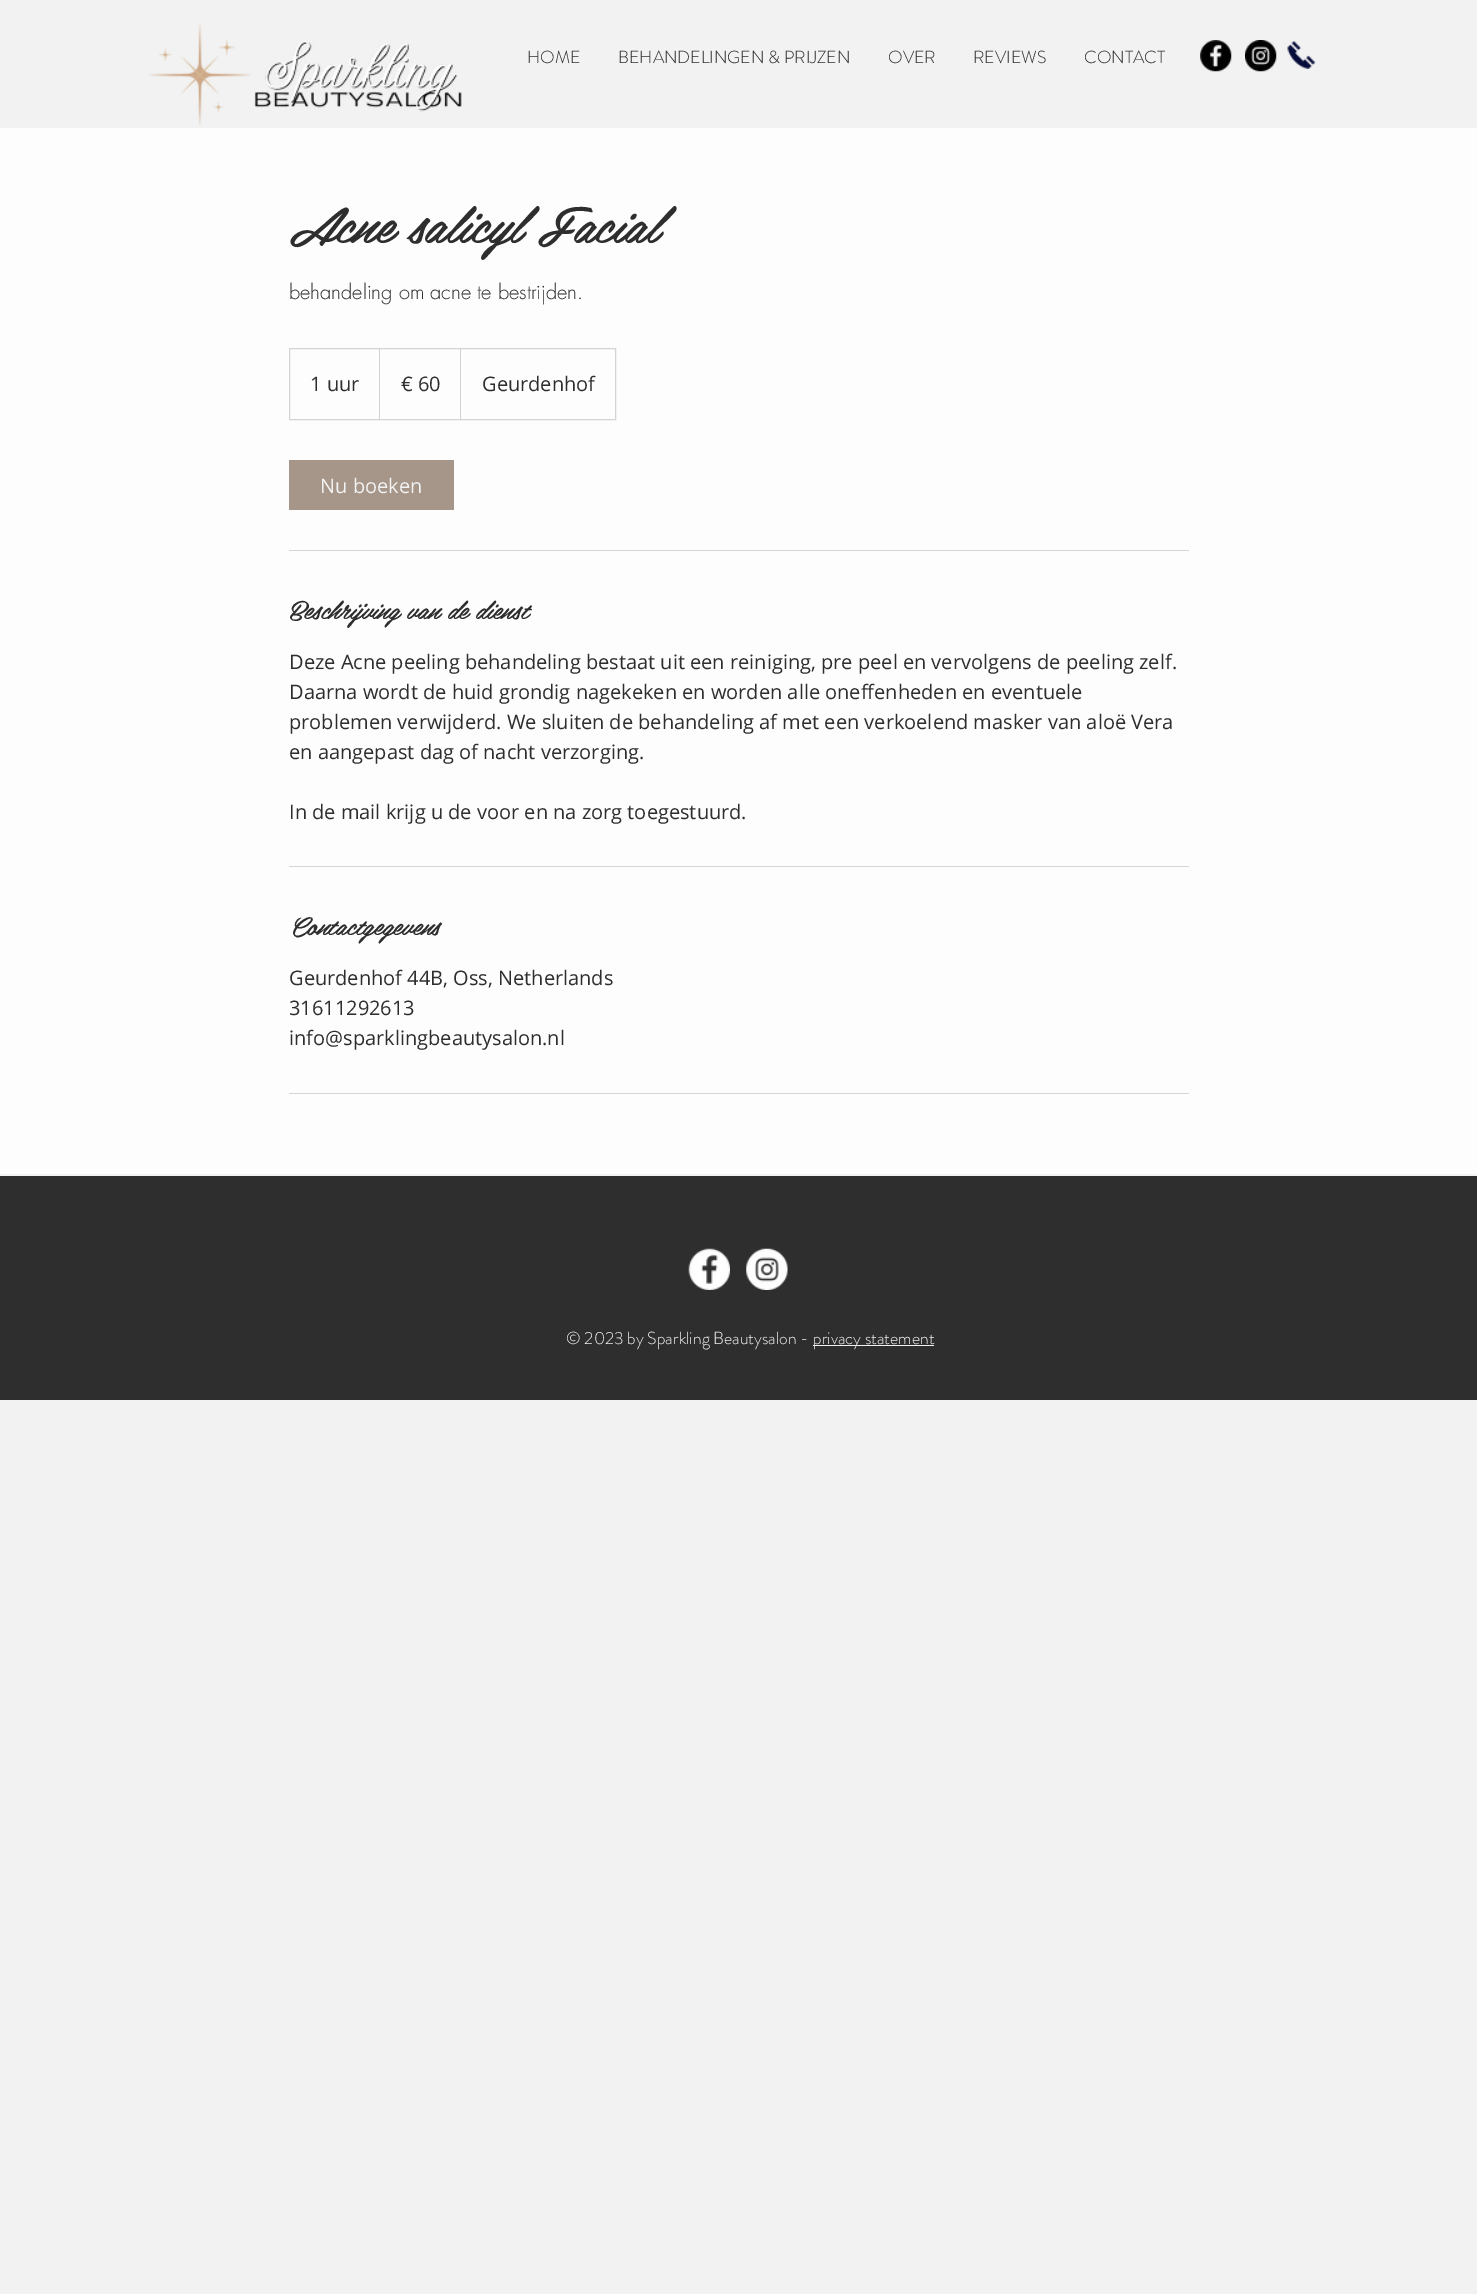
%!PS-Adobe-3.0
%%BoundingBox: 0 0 1477 2294
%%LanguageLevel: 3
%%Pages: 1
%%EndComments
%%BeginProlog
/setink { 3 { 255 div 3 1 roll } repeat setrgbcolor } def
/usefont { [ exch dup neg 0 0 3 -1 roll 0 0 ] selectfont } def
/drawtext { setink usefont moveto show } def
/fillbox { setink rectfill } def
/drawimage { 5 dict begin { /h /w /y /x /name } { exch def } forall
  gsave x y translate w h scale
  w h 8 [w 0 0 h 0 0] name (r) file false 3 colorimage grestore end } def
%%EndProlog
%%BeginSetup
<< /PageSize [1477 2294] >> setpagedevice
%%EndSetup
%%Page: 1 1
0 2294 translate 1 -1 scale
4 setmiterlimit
0 0 1477 2294 242 242 242 fillbox
(assets/img1.rgb) 149 24 102 102 drawimage
(assets/img2.rgb) 254 40 208 72 drawimage
(HOME) 527 63 /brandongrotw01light-Light 17.5 46 46 46 drawtext
(BEHANDELINGEN & PRIJZEN) 618 63 /brandongrotw01light-Light 17.5 46 46 46 drawtext
(OVER) 888 63 /brandongrotw01light-Light 17.5 46 46 46 drawtext
(REVIEWS) 973 63 /brandongrotw01light-Light 17.5 46 46 46 drawtext
(CONTACT) 1084 63 /brandongrotw01light-Light 17.5 46 46 46 drawtext
(assets/img3.rgb) 1200 40 32 32 drawimage
(assets/img4.rgb) 1245 40 32 32 drawimage
(assets/img5.rgb) 1287 41 29 28 drawimage
0 128 1477 1046 253 253 254 fillbox
(Acne salicyl Facial) 289 243 /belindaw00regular-Italic 50 46 46 46 drawtext
(behandeling om acne te bestrijden.) 289 299 /futura-Light 20 46 46 46 drawtext
212 212 212 setink
289.5 348.5 326 71 rectstroke
(1 uur) 310 391 /OpenSans-Regular 20 46 46 46 drawtext
212 212 212 setink
379 419 moveto 379 348 lineto 380 349 lineto 380 419 lineto closepath fill
(€ 60) 401 391 /OpenSans-Regular 20 46 46 46 drawtext
212 212 212 setink
460 419 moveto 460 348 lineto 461 349 lineto 461 419 lineto closepath fill
(Geurdenhof) 482 391 /OpenSans-Regular 20 46 46 46 drawtext
289 460 165 50 166 150 137 fillbox
(Nu boeken) 320 493 /OpenSans-Regular 20 242 242 242 drawtext
289 550 900 1 212 212 212 fillbox
(Beschrijving van de dienst) 289 619 /belindaw00regular-Italic 25 46 46 46 drawtext
(Deze Acne peeling behandeling bestaat uit een reiniging, pre peel en vervolgens de peeling zelf.) 289 669 /OpenSans-Regular 20 46 46 46 drawtext
(Daarna wordt de huid grondig nagekeken en worden alle oneffenheden en eventuele) 289 699 /OpenSans-Regular 20 46 46 46 drawtext
(problemen verwijderd. We sluiten de behandeling af met een verkoelend masker van aloë Vera) 289 729 /OpenSans-Regular 20 46 46 46 drawtext
(en aangepast dag of nacht verzorging.) 289 759 /OpenSans-Regular 20 46 46 46 drawtext
(In de mail krijg u de voor en na zorg toegestuurd.) 289 819 /OpenSans-Regular 20 46 46 46 drawtext
289 866 900 1 212 212 212 fillbox
(Contactgegevens) 289 935 /belindaw00regular-Italic 25 46 46 46 drawtext
(Geurdenhof 44B, Oss, Netherlands) 289 985 /OpenSans-Regular 20 46 46 46 drawtext
(31611292613) 289 1015 /OpenSans-Regular 20 46 46 46 drawtext
(info@sparklingbeautysalon.nl) 289 1045 /OpenSans-Regular 20 46 46 46 drawtext
289 1093 900 1 212 212 212 fillbox
0 1176 1477 224 46 46 46 fillbox
(assets/img6.rgb) 688 1248 42 42 drawimage
(assets/img7.rgb) 746 1248 42 42 drawimage
(© 2023 by Sparkling Beautysalon -) 566 1344 /brandongrotw01light-Light 17.5 242 242 242 drawtext
813 1345 121 1 242 242 242 fillbox
(privacy statement) 813 1344 /brandongrotw01light-Light 17.5 242 242 242 drawtext
showpage
%%EOF
